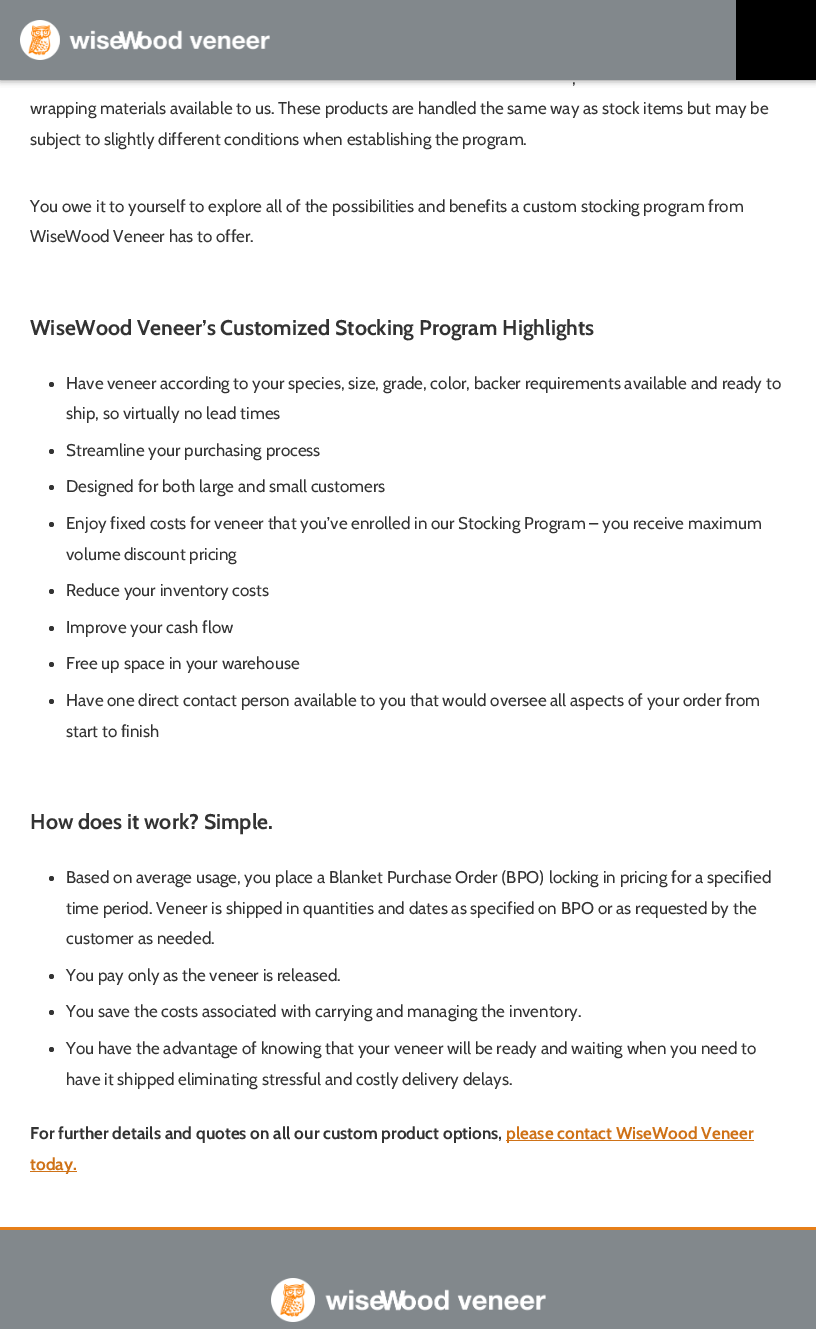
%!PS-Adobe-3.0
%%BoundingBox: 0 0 816 1329
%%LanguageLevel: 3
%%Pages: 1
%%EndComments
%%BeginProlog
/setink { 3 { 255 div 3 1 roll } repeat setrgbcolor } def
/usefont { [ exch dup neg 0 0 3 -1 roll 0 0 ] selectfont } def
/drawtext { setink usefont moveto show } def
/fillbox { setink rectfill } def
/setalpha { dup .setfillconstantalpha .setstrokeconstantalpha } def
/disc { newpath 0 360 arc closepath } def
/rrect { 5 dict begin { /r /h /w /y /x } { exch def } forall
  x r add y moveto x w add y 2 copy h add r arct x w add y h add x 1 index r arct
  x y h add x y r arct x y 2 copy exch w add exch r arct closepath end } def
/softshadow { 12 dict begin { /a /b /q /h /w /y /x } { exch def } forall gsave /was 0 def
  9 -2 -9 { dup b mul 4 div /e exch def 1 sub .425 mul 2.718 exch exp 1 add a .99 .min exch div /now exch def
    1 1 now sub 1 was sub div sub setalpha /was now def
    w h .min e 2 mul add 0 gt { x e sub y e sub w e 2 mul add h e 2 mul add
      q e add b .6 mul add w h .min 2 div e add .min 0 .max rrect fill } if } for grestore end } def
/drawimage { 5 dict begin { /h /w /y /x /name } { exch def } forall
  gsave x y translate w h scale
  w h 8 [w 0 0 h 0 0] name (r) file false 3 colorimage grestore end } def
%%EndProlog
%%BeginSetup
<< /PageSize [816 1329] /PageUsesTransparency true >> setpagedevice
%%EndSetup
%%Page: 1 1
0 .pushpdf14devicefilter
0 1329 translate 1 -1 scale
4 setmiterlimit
0 0 816 1329 255 255 255 fillbox
0 0 0 setink
0 0 816 80 0 3.5 0.5 softshadow
0 0 736 80 130 136 140 fillbox
(assets/img1.rgb) 20 20 250 40 drawimage
(wrapping materials available to us. These products are handled the same way as stock items but may be) 30 114 /Cabin-Regular 17 51 51 51 drawtext
gsave
736 0 80 80 rectclip
0 0 0 setink
776 40 75 disc fill
grestore
(,) 572 84 /Cabin-Regular 17 51 51 51 drawtext
(subject to slightly different conditions when establishing the program.) 30 145 /Cabin-Regular 17 51 51 51 drawtext
(You owe it to yourself to explore all of the possibilities and benefits a custom stocking program from) 30 212 /Cabin-Regular 17 51 51 51 drawtext
(WiseWood Veneer has to offer.) 30 242 /Cabin-Regular 17 51 51 51 drawtext
(WiseWood Veneer’s Customized Stocking Program Highlights) 30 335 /Cabin-Bold 21.25 51 51 51 drawtext
51.5 384.5 2.5 disc fill
(Have veneer according to your species, size, grade, color, backer requirements available and ready to) 66 389 /Cabin-Regular 17 51 51 51 drawtext
(ship, so virtually no lead times) 66 419 /Cabin-Regular 17 51 51 51 drawtext
51.5 451.5 2.5 disc fill
(Streamline your purchasing process) 66 456 /Cabin-Regular 17 51 51 51 drawtext
51.5 487.5 2.5 disc fill
(Designed for both large and small customers) 66 492 /Cabin-Regular 17 51 51 51 drawtext
51.5 524.5 2.5 disc fill
(Enjoy fixed costs for veneer that you’ve enrolled in our Stocking Program – you receive maximum) 66 529 /Cabin-Regular 17 51 51 51 drawtext
(volume discount pricing) 66 560 /Cabin-Regular 17 51 51 51 drawtext
51.5 591.5 2.5 disc fill
(Reduce your inventory costs) 66 596 /Cabin-Regular 17 51 51 51 drawtext
51.5 628.5 2.5 disc fill
(Improve your cash flow) 66 633 /Cabin-Regular 17 51 51 51 drawtext
51.5 664.5 2.5 disc fill
(Free up space in your warehouse) 66 669 /Cabin-Regular 17 51 51 51 drawtext
51.5 701.5 2.5 disc fill
(Have one direct contact person available to you that would oversee all aspects of your order from) 66 706 /Cabin-Regular 17 51 51 51 drawtext
(start to finish) 66 737 /Cabin-Regular 17 51 51 51 drawtext
(How does it work? Simple.) 30 829 /Cabin-Bold 21.25 51 51 51 drawtext
51.5 878.5 2.5 disc fill
(Based on average usage, you place a Blanket Purchase Order \(BPO\) locking in pricing for a specified) 66 883 /Cabin-Regular 17 51 51 51 drawtext
(time period. Veneer is shipped in quantities and dates as specified on BPO or as requested by the) 66 914 /Cabin-Regular 17 51 51 51 drawtext
(customer as needed.) 66 944 /Cabin-Regular 17 51 51 51 drawtext
51.5 976.5 2.5 disc fill
(You pay only as the veneer is released.) 66 981 /Cabin-Regular 17 51 51 51 drawtext
51.5 1012.5 2.5 disc fill
(You save the costs associated with carrying and managing the inventory.) 66 1017 /Cabin-Regular 17 51 51 51 drawtext
51.5 1049.5 2.5 disc fill
(You have the advantage of knowing that your veneer will be ready and waiting when you need to) 66 1054 /Cabin-Regular 17 51 51 51 drawtext
(have it shipped eliminating stressful and costly delivery delays.) 66 1085 /Cabin-Regular 17 51 51 51 drawtext
(For further details and quotes on all our custom product options,) 30 1139 /Cabin-Bold 17 51 51 51 drawtext
506 1140 248 1 207 114 23 fillbox
(please contact WiseWood Veneer) 506 1139 /Cabin-Bold 17 207 114 23 drawtext
30 1171 47 1 207 114 23 fillbox
(today.) 30 1170 /Cabin-Bold 17 207 114 23 drawtext
0 1230 816 99 130 136 140 fillbox
0 1227 816 3 230 127 25 fillbox
(assets/img2.rgb) 271 1278 275 44 drawimage
.poppdf14devicefilter showpage
%%EOF
